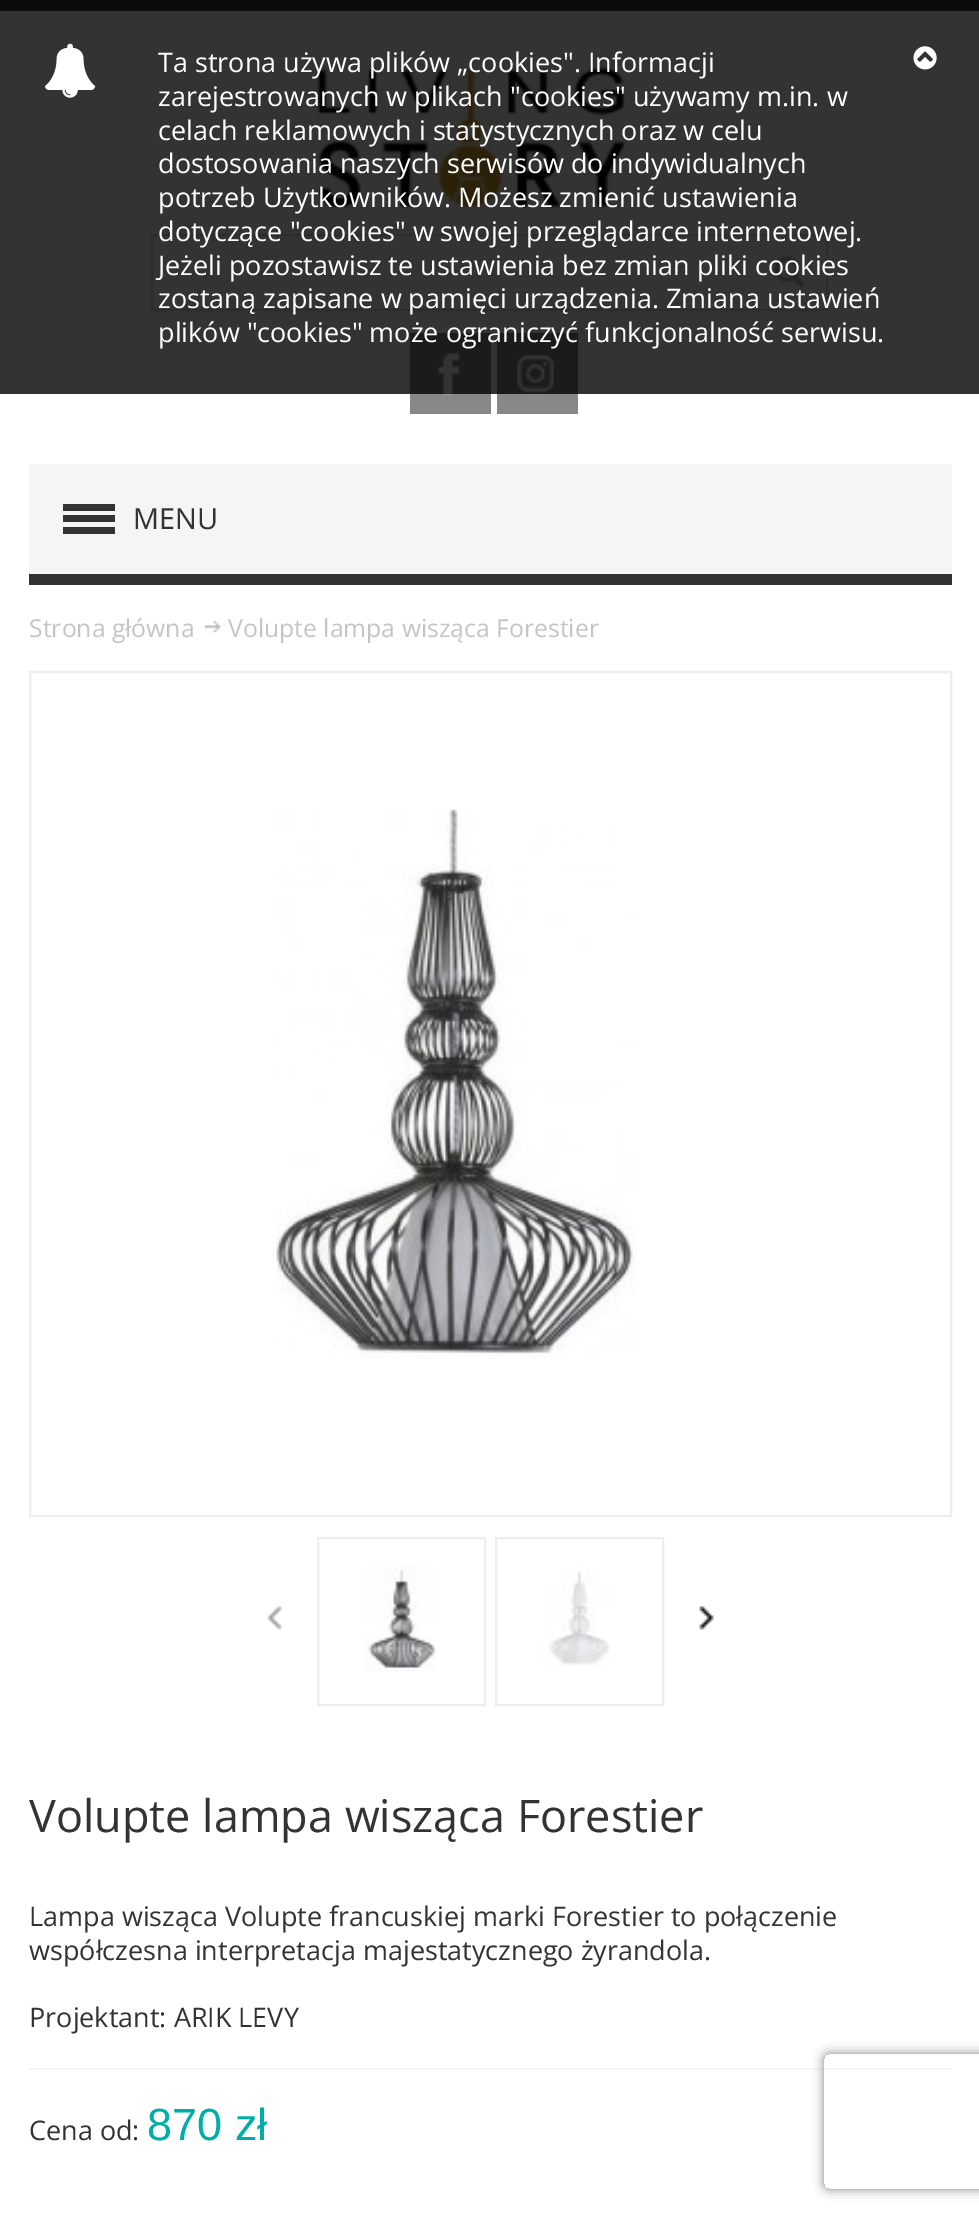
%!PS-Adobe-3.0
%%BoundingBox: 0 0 979 2220
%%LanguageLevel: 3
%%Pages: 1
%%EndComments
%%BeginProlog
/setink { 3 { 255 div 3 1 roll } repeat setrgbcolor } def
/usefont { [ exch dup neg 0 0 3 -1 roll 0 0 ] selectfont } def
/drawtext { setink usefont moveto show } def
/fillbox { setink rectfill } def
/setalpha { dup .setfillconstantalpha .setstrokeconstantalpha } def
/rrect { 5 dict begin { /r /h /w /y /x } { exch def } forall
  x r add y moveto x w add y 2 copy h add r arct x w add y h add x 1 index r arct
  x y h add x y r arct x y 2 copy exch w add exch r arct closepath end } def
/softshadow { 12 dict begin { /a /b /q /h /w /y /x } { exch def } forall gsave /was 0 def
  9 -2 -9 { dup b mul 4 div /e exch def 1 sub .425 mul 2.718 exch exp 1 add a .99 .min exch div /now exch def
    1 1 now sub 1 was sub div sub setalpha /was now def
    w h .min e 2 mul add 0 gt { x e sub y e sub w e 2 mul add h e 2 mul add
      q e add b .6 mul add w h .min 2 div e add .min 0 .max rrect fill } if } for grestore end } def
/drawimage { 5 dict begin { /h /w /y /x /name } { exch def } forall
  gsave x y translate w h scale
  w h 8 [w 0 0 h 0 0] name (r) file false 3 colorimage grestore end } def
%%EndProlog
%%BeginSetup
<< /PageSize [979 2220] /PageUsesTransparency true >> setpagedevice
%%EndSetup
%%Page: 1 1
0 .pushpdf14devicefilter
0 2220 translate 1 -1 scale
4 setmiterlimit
0 0 979 2220 255 255 255 fillbox
0 11 979 383 51 51 51 fillbox
0 0 979 11 10 10 10 fillbox
(assets/img1.rgb) 45 43 51 55 drawimage
(assets/img3.rgb) 315 52 324 160 drawimage
(Ta strona używa plików „cookies". Informacji) 158 72 /OpenSans-Regular 27 255 255 255 drawtext
(zarejestrowanych w plikach "cookies" używamy m.in. w) 158 106 /OpenSans-Regular 27 255 255 255 drawtext
(celach reklamowych i statystycznych oraz w celu) 158 140 /OpenSans-Regular 27 255 255 255 drawtext
(dostosowania naszych serwisów do indywidualnych) 158 173 /OpenSans-Regular 27 255 255 255 drawtext
(potrzeb Użytkowników. Możesz zmienić ustawienia) 158 207 /OpenSans-Regular 27 255 255 255 drawtext
44 44 44 setink
2 setlinewidth
152 235 675 75 rectstroke
(dotyczące "cookies" w swojej przeglądarce internetowej.) 158 241 /OpenSans-Regular 27 255 255 255 drawtext
(assets/img4.rgb) 773 256 33 33 drawimage
(Jeżeli pozostawisz te ustawienia bez zmian pliki cookies) 158 275 /OpenSans-Regular 27 255 255 255 drawtext
(zostaną zapisane w pamięci urządzenia. Zmiana ustawień) 158 308 /OpenSans-Regular 27 255 255 255 drawtext
410 333 81 61 27 27 27 fillbox
497 333 81 61 27 27 27 fillbox
(plików "cookies" może ograniczyć funkcjonalność serwisu.) 158 342 /OpenSans-Regular 27 255 255 255 drawtext
(assets/img2.rgb) 913 46 24 24 drawimage
410 394 81 20 136 136 136 fillbox
(assets/img5.rgb) 438 352 22 43 drawimage
497 394 81 20 136 136 136 fillbox
(assets/img6.rgb) 517 355 38 38 drawimage
29 464 923 110 245 245 245 fillbox
63 504 52 7 51 51 51 fillbox
63 515 52 7 51 51 51 fillbox
63 527 52 7 51 51 51 fillbox
(MENU) 133 529 /OpenSans-Regular 29 51 51 51 drawtext
29 574 923 11 51 51 51 fillbox
(Strona główna) 29 637 /OpenSans-Regular 24.75 197 197 197 drawtext
(assets/img7.rgb) 204 621 17 12 drawimage
(Volupte lampa wisząca Forestier) 228 637 /OpenSans-Regular 24.75 197 197 197 drawtext
238 238 238 setink
30 672 921 844 rectstroke
(assets/img8.rgb) 276 809 361 549 drawimage
318 1538 167 167 rectstroke
(assets/img9.rgb) 365 1566 71 106 drawimage
496 1538 167 167 rectstroke
(assets/img10.rgb) 543 1567 67 99 drawimage
(assets/img11.rgb) 267 1606 15 24 drawimage
(assets/img12.rgb) 699 1606 15 24 drawimage
(Volupte lampa wisząca Forestier) 29 1832 /OpenSans-Regular 45 51 51 51 drawtext
(Lampa wisząca Volupte francuskiej marki Forestier to połączenie) 29 1926 /OpenSans-Regular 27 51 51 51 drawtext
(współczesna interpretacja majestatycznego żyrandola.) 29 1960 /OpenSans-Regular 27 51 51 51 drawtext
(Projektant: ARIK LEVY) 29 2027 /OpenSans-Regular 27 51 51 51 drawtext
29 2068 923 2 245 245 245 fillbox
(Cena od:) 29 2140 /OpenSans-Regular 27 51 51 51 drawtext
(870 zł) 147 2140 /LiberationSans-Regular 45 0 173 168 drawtext
gsave
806 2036 moveto 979 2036 lineto 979 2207 lineto 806 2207 lineto closepath 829 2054 moveto 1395 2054 lineto 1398 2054 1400 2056 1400 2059 curveto 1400 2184 lineto 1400 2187 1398 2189 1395 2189 curveto 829 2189 lineto 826 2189 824 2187 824 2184 curveto 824 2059 lineto 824 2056 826 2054 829 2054 curveto closepath eoclip newpath
128 128 128 setink
824 2054 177 135 5 5.5 1 softshadow
grestore
.poppdf14devicefilter showpage
%%EOF
